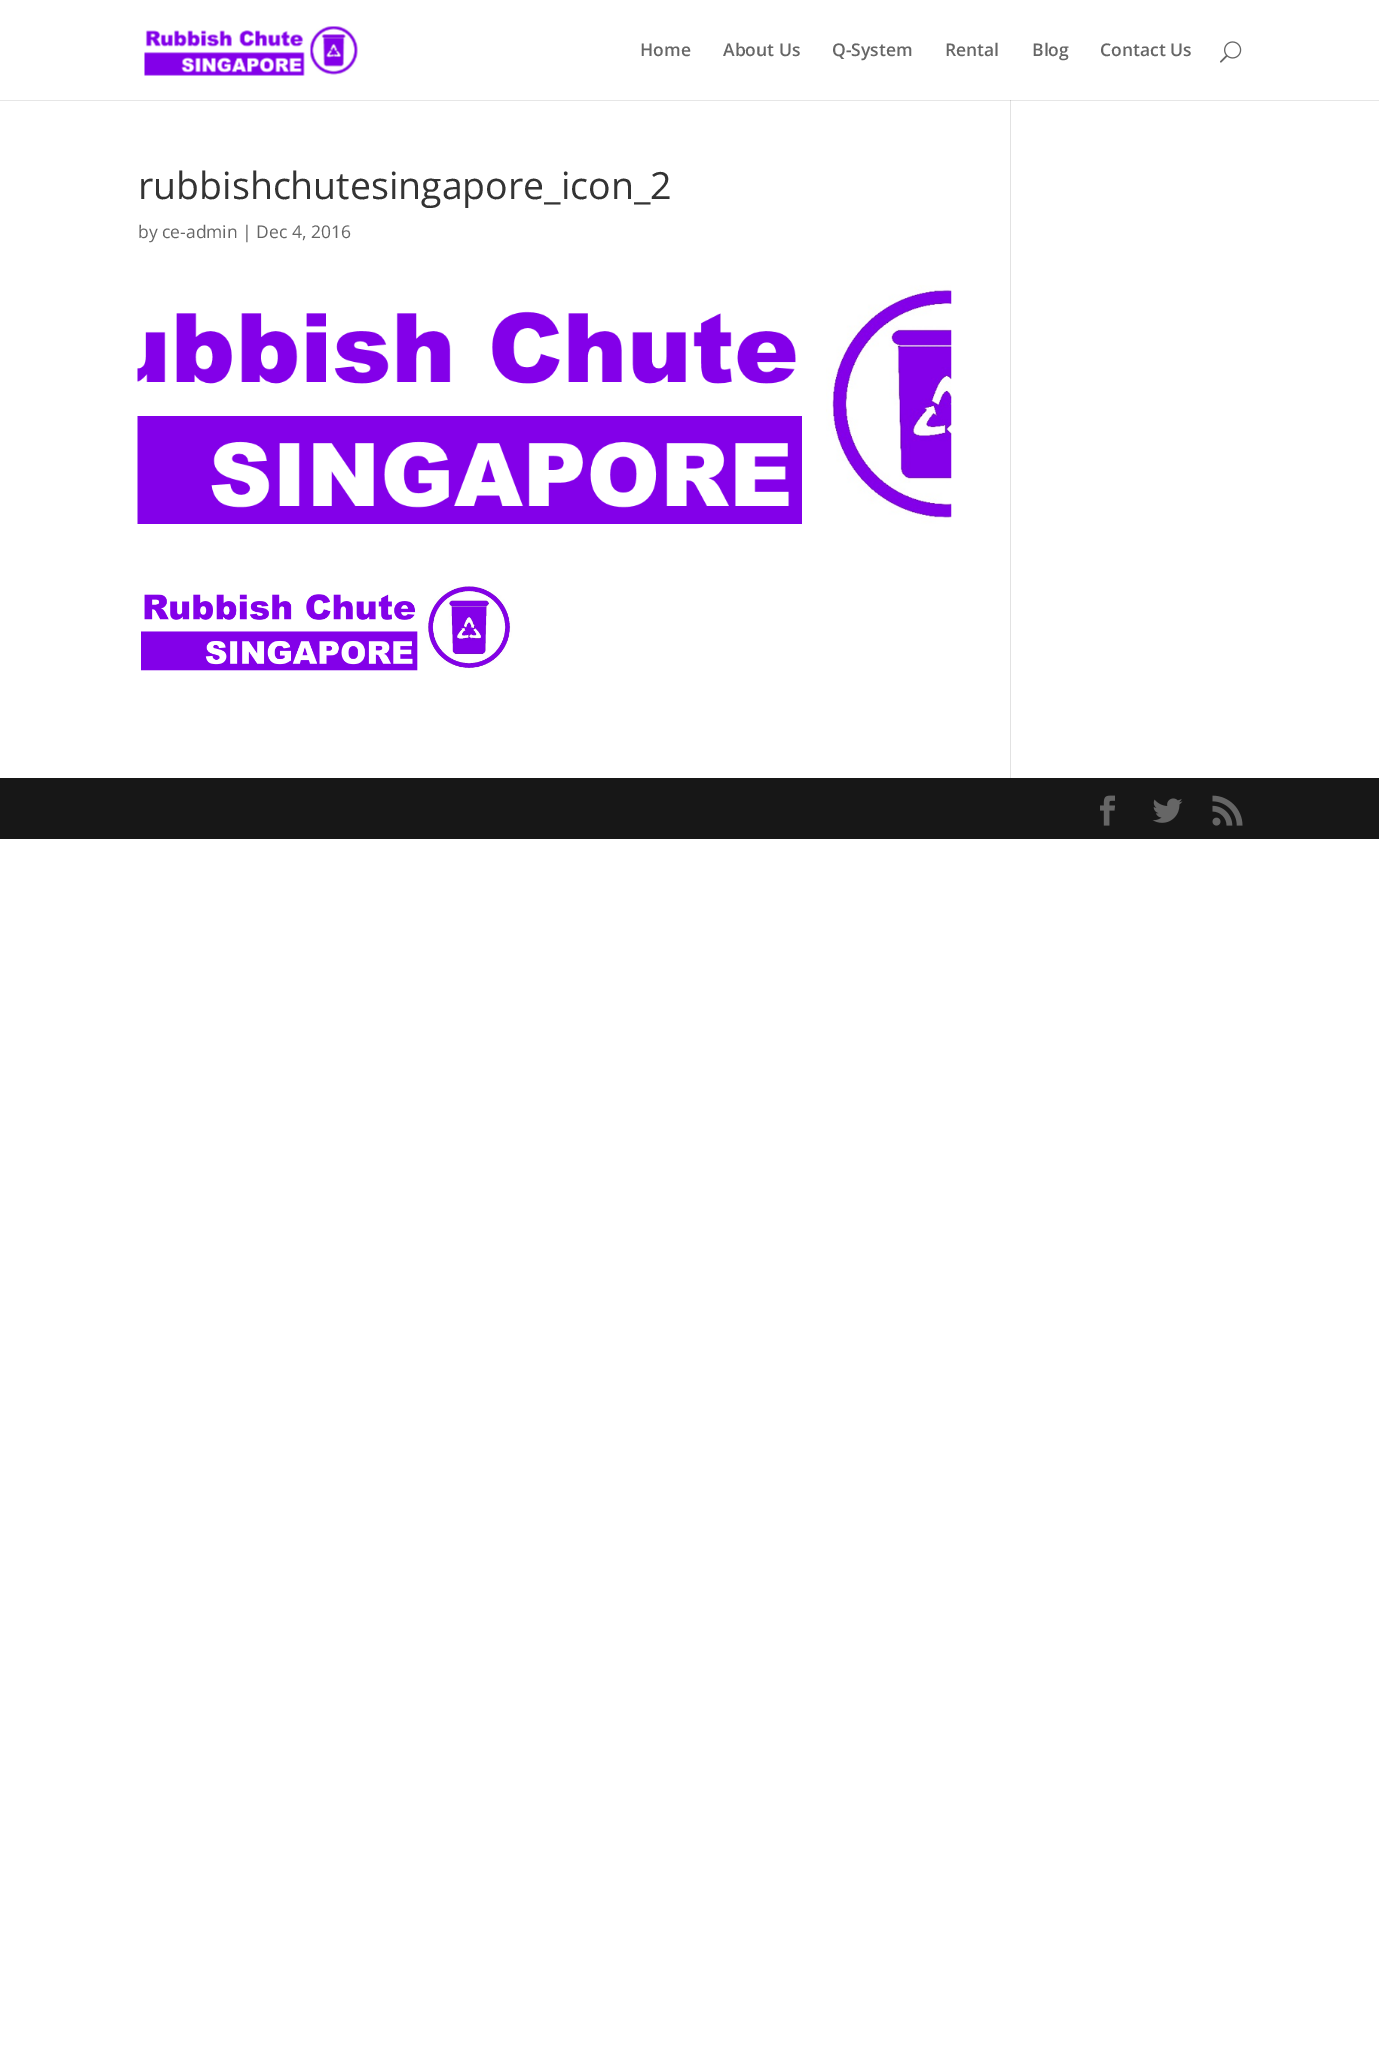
%!PS-Adobe-3.0
%%BoundingBox: 0 0 1379 2071
%%LanguageLevel: 3
%%Pages: 1
%%EndComments
%%BeginProlog
/setink { 3 { 255 div 3 1 roll } repeat setrgbcolor } def
/usefont { [ exch dup neg 0 0 3 -1 roll 0 0 ] selectfont } def
/drawtext { setink usefont moveto show } def
/fillbox { setink rectfill } def
/drawimage { 5 dict begin { /h /w /y /x /name } { exch def } forall
  gsave x y translate w h scale
  w h 8 [w 0 0 h 0 0] name (r) file false 3 colorimage grestore end } def
%%EndProlog
%%BeginSetup
<< /PageSize [1379 2071] >> setpagedevice
%%EndSetup
%%Page: 1 1
0 2071 translate 1 -1 scale
4 setmiterlimit
0 0 1379 2071 255 255 255 fillbox
0 100 1379 1 230 230 230 fillbox
1010 94 1 684 226 226 226 fillbox
1010 94 1 6 255 255 255 fillbox
(assets/img1.rgb) 144 26 214 50 drawimage
(Home) 640 56 /OpenSans-SemiBold 17.5 102 102 102 drawtext
(About Us) 723 56 /OpenSans-SemiBold 17.5 102 102 102 drawtext
(Q-System) 832 56 /OpenSans-SemiBold 17.5 102 102 102 drawtext
(Rental) 945 56 /OpenSans-SemiBold 17.5 102 102 102 drawtext
(Blog) 1032 56 /OpenSans-SemiBold 17.5 102 102 102 drawtext
(Contact Us) 1100 56 /OpenSans-SemiBold 17.5 102 102 102 drawtext
(assets/img2.rgb) 1220 41 22 22 drawimage
(rubbishchutesingapore_icon_2) 138 199 /OpenSans-Regular 37.5 51 51 51 drawtext
(by ce-admin | Dec 4, 2016) 138 238 /OpenSans-Regular 17.5 102 102 102 drawtext
(assets/img3.rgb) 137 285 815 239 drawimage
(assets/img4.rgb) 141 586 371 85 drawimage
1010 100 1 1 203 203 203 fillbox
0 778 1379 61 23 23 23 fillbox
(assets/img5.rgb) 1100 795 15 31 drawimage
(assets/img6.rgb) 1152 798 31 25 drawimage
(assets/img7.rgb) 1212 795 31 31 drawimage
showpage
%%EOF
